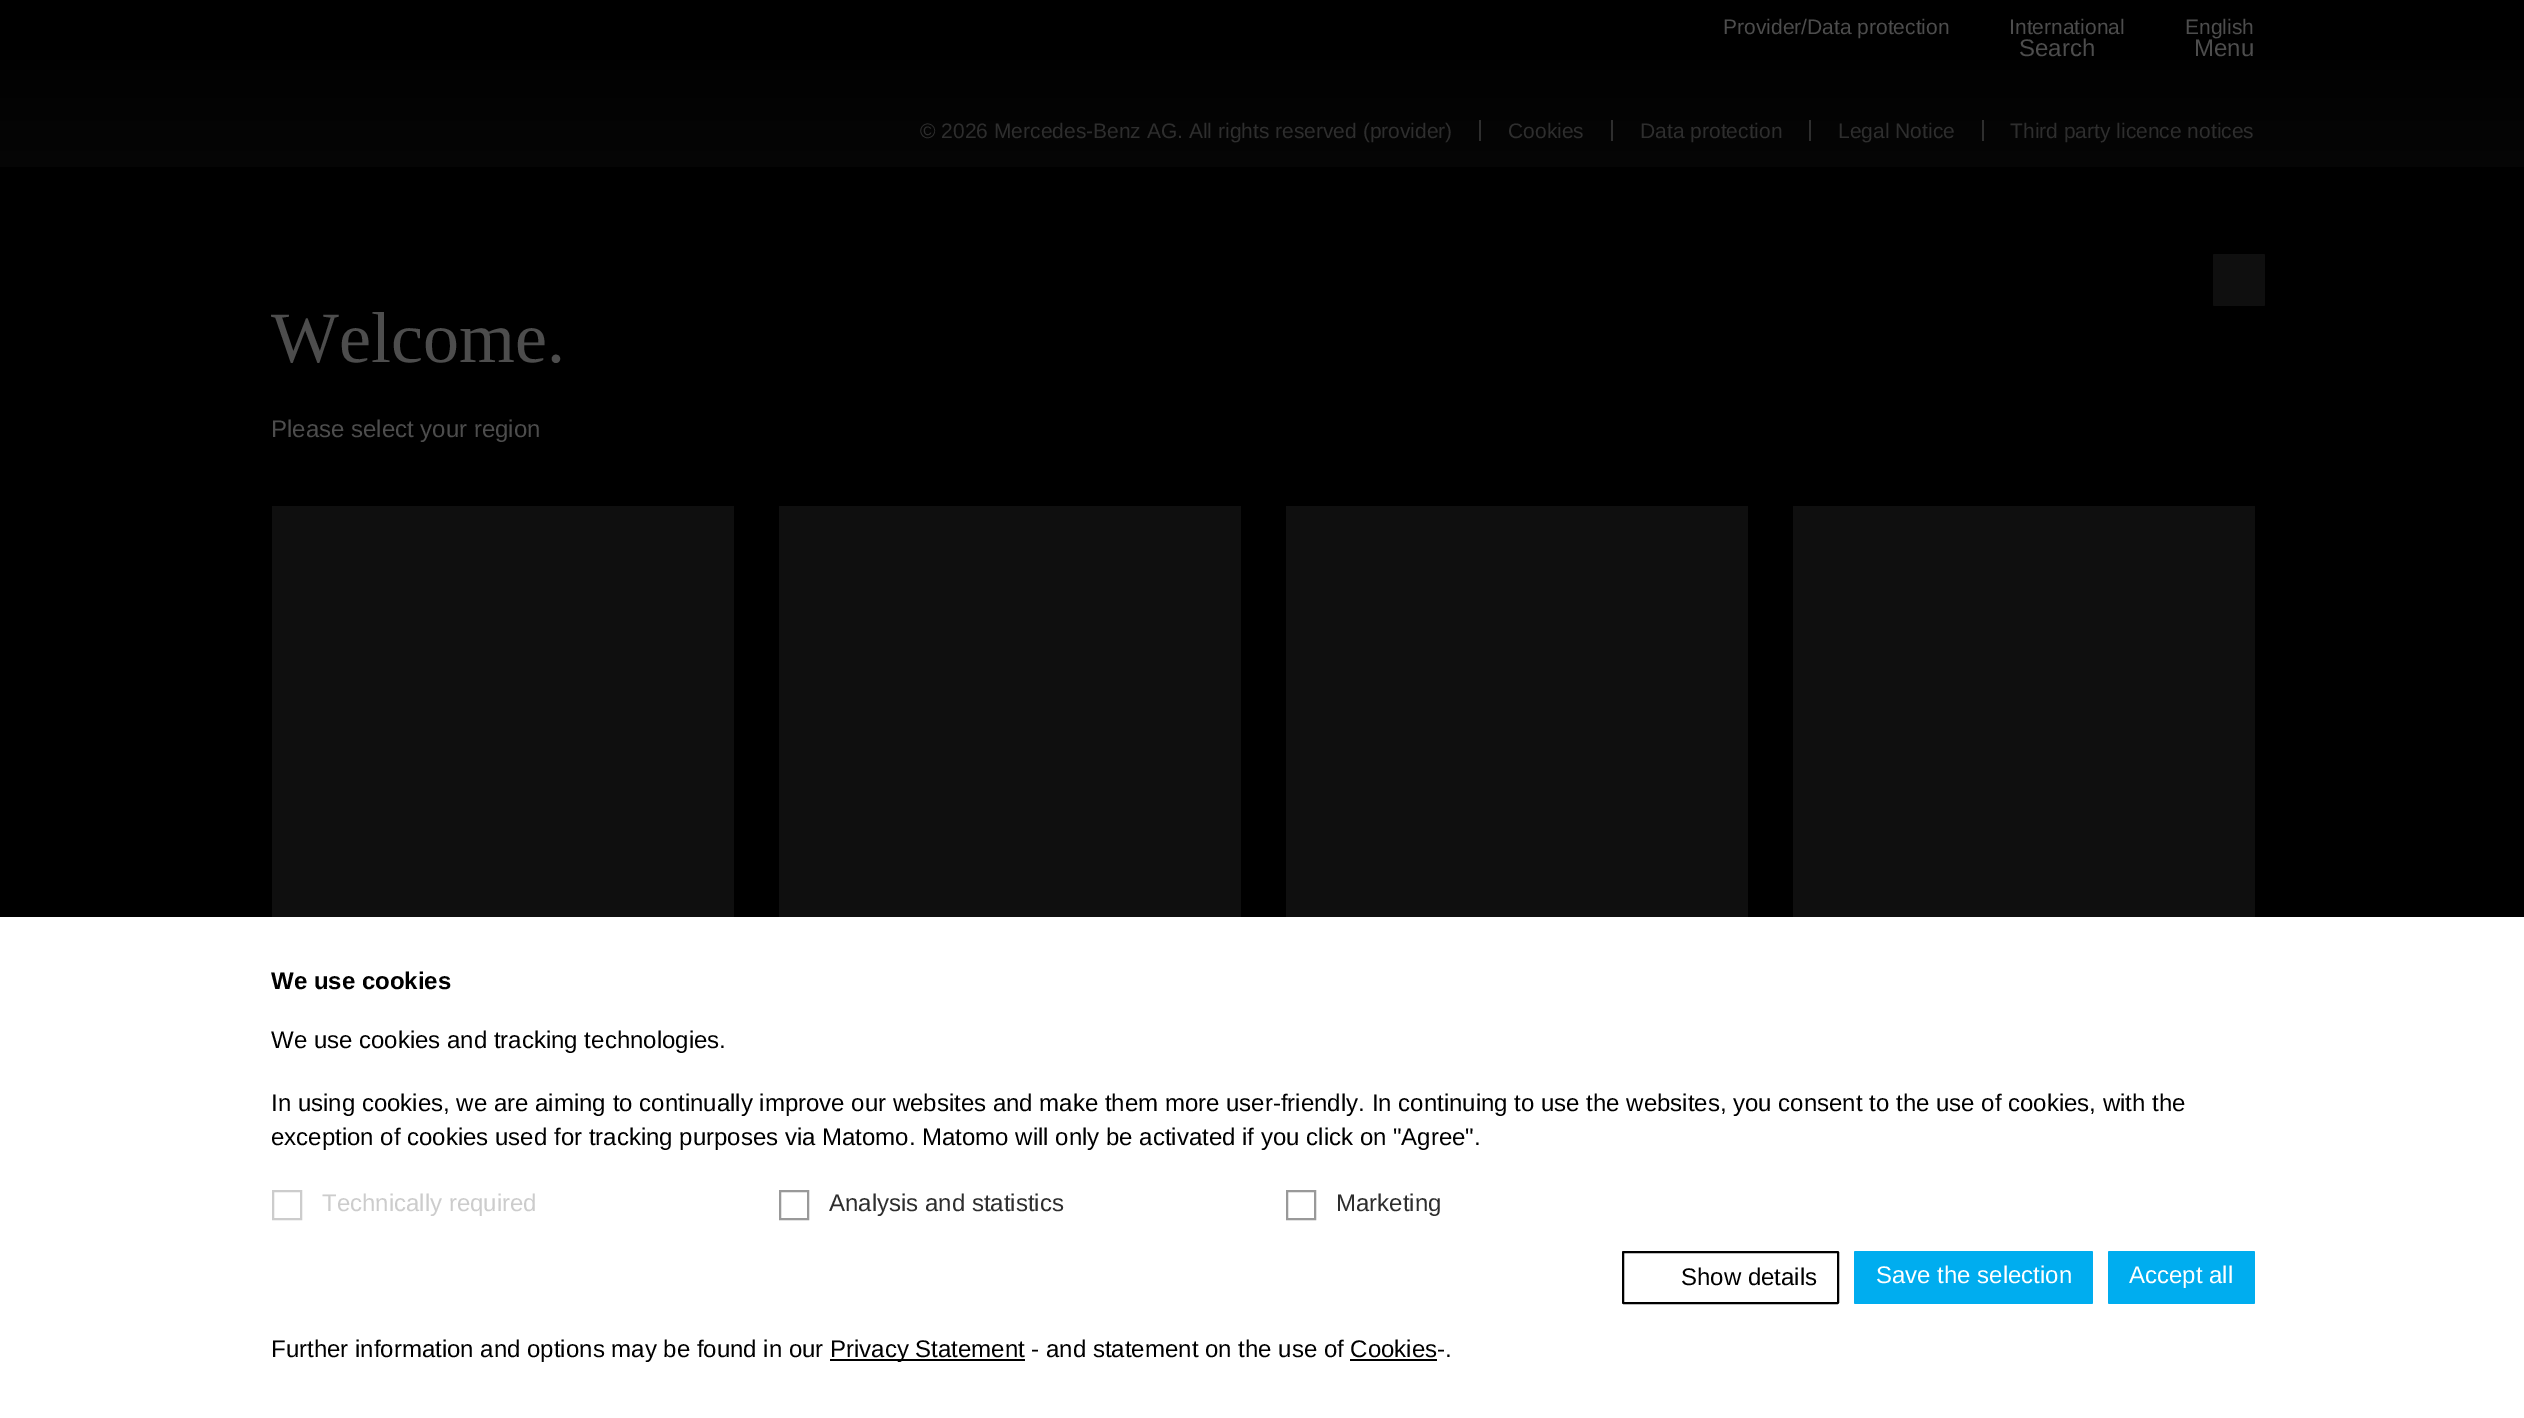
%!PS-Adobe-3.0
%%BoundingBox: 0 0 2524 1418
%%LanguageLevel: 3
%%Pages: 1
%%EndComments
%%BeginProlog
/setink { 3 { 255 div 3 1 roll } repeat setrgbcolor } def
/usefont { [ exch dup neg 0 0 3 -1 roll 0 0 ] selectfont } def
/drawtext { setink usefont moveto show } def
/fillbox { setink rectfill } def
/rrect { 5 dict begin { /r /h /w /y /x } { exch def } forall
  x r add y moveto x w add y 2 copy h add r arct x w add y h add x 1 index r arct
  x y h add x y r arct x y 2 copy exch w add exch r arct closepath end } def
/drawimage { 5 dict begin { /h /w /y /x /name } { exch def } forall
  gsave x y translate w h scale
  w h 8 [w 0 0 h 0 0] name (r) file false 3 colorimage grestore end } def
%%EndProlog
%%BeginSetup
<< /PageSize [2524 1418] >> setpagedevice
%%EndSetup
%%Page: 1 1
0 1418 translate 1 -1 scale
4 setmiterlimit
0 0 2524 1418 0 0 0 fillbox
(assets/img1.rgb) 0 60 2524 107 drawimage
(International) 2009 34 /LiberationSans-Regular 21 77 77 77 drawtext
15 15 15 setink
2213 254 52 52 1.5 rrect fill
(Welcome.) 271 362 /LiberationSerif-Regular 72 77 77 77 drawtext
(Please select your region) 271 437 /LiberationSans-Regular 24 77 77 77 drawtext
272 506 462 411 15 15 15 fillbox
779 506 462 411 15 15 15 fillbox
1286 506 462 411 15 15 15 fillbox
1793 506 462 411 15 15 15 fillbox
(Provider/Data protection) 1723 34 /LiberationSans-Regular 21 77 77 77 drawtext
(English) 2185 34 /LiberationSans-Regular 21 77 77 77 drawtext
(Search) 2019 56 /LiberationSans-Regular 24 77 77 77 drawtext
(Menu) 2194 56 /LiberationSans-Regular 24 77 77 77 drawtext
1479 120 2 21 46 46 46 fillbox
(© 2026 Mercedes-Benz AG. All rights reserved \(provider\)) 920 138 /LiberationSans-Regular 21 46 46 46 drawtext
1611 120 2 21 46 46 46 fillbox
(Cookies) 1508 138 /LiberationSans-Regular 21 46 46 46 drawtext
1809 120 2 21 46 46 46 fillbox
(Data protection) 1640 138 /LiberationSans-Regular 21 46 46 46 drawtext
1982 120 2 21 46 46 46 fillbox
(Legal Notice) 1838 138 /LiberationSans-Regular 21 46 46 46 drawtext
(Third party licence notices) 2010 138 /LiberationSans-Regular 21 46 46 46 drawtext
0 917 2524 501 255 255 255 fillbox
(We use cookies) 271 989 /LiberationSans-Bold 24 0 0 0 drawtext
(We use cookies and tracking technologies.) 271 1048 /LiberationSans-Regular 24 0 0 0 drawtext
(In using cookies, we are aiming to continually improve our websites and make them more user-friendly. In continuing to use the websites, you consent to the use of cookies, with the) 271 1111 /LiberationSans-Regular 24 0 0 0 drawtext
(exception of cookies used for tracking purposes via Matomo. Matomo will only be activated if you click on "Agree".) 271 1145 /LiberationSans-Regular 24 0 0 0 drawtext
204 204 204 setink
2 setlinewidth
273 1191 28 28 rectstroke
(Technically required) 322 1211 /LiberationSans-Regular 24 204 204 204 drawtext
153 153 153 setink
780 1191 28 28 rectstroke
(Analysis and statistics) 829 1211 /LiberationSans-Regular 24 46 46 46 drawtext
153 153 153 setink
1287 1191 28 28 rectstroke
(Marketing) 1336 1211 /LiberationSans-Regular 24 46 46 46 drawtext
0 0 0 setink
1623 1252 215 51 0.5 rrect stroke
(Show details) 1681 1285 /LiberationSans-Regular 24 0 0 0 drawtext
0 173 239 setink
1854 1251 239 53 1.5 rrect fill
(Save the selection) 1876 1283 /LiberationSans-Regular 24 255 255 255 drawtext
0 173 239 setink
2108 1251 147 53 1.5 rrect fill
(Accept all) 2129 1283 /LiberationSans-Regular 24 255 255 255 drawtext
(Further information and options may be found in our) 271 1357 /LiberationSans-Regular 24 0 0 0 drawtext
830 1359 195 2 0 0 0 fillbox
(Privacy Statement - and statement on the use of Cookies-.) 830 1357 /LiberationSans-Regular 24 0 0 0 drawtext
1350 1359 87 2 0 0 0 fillbox
showpage
%%EOF
